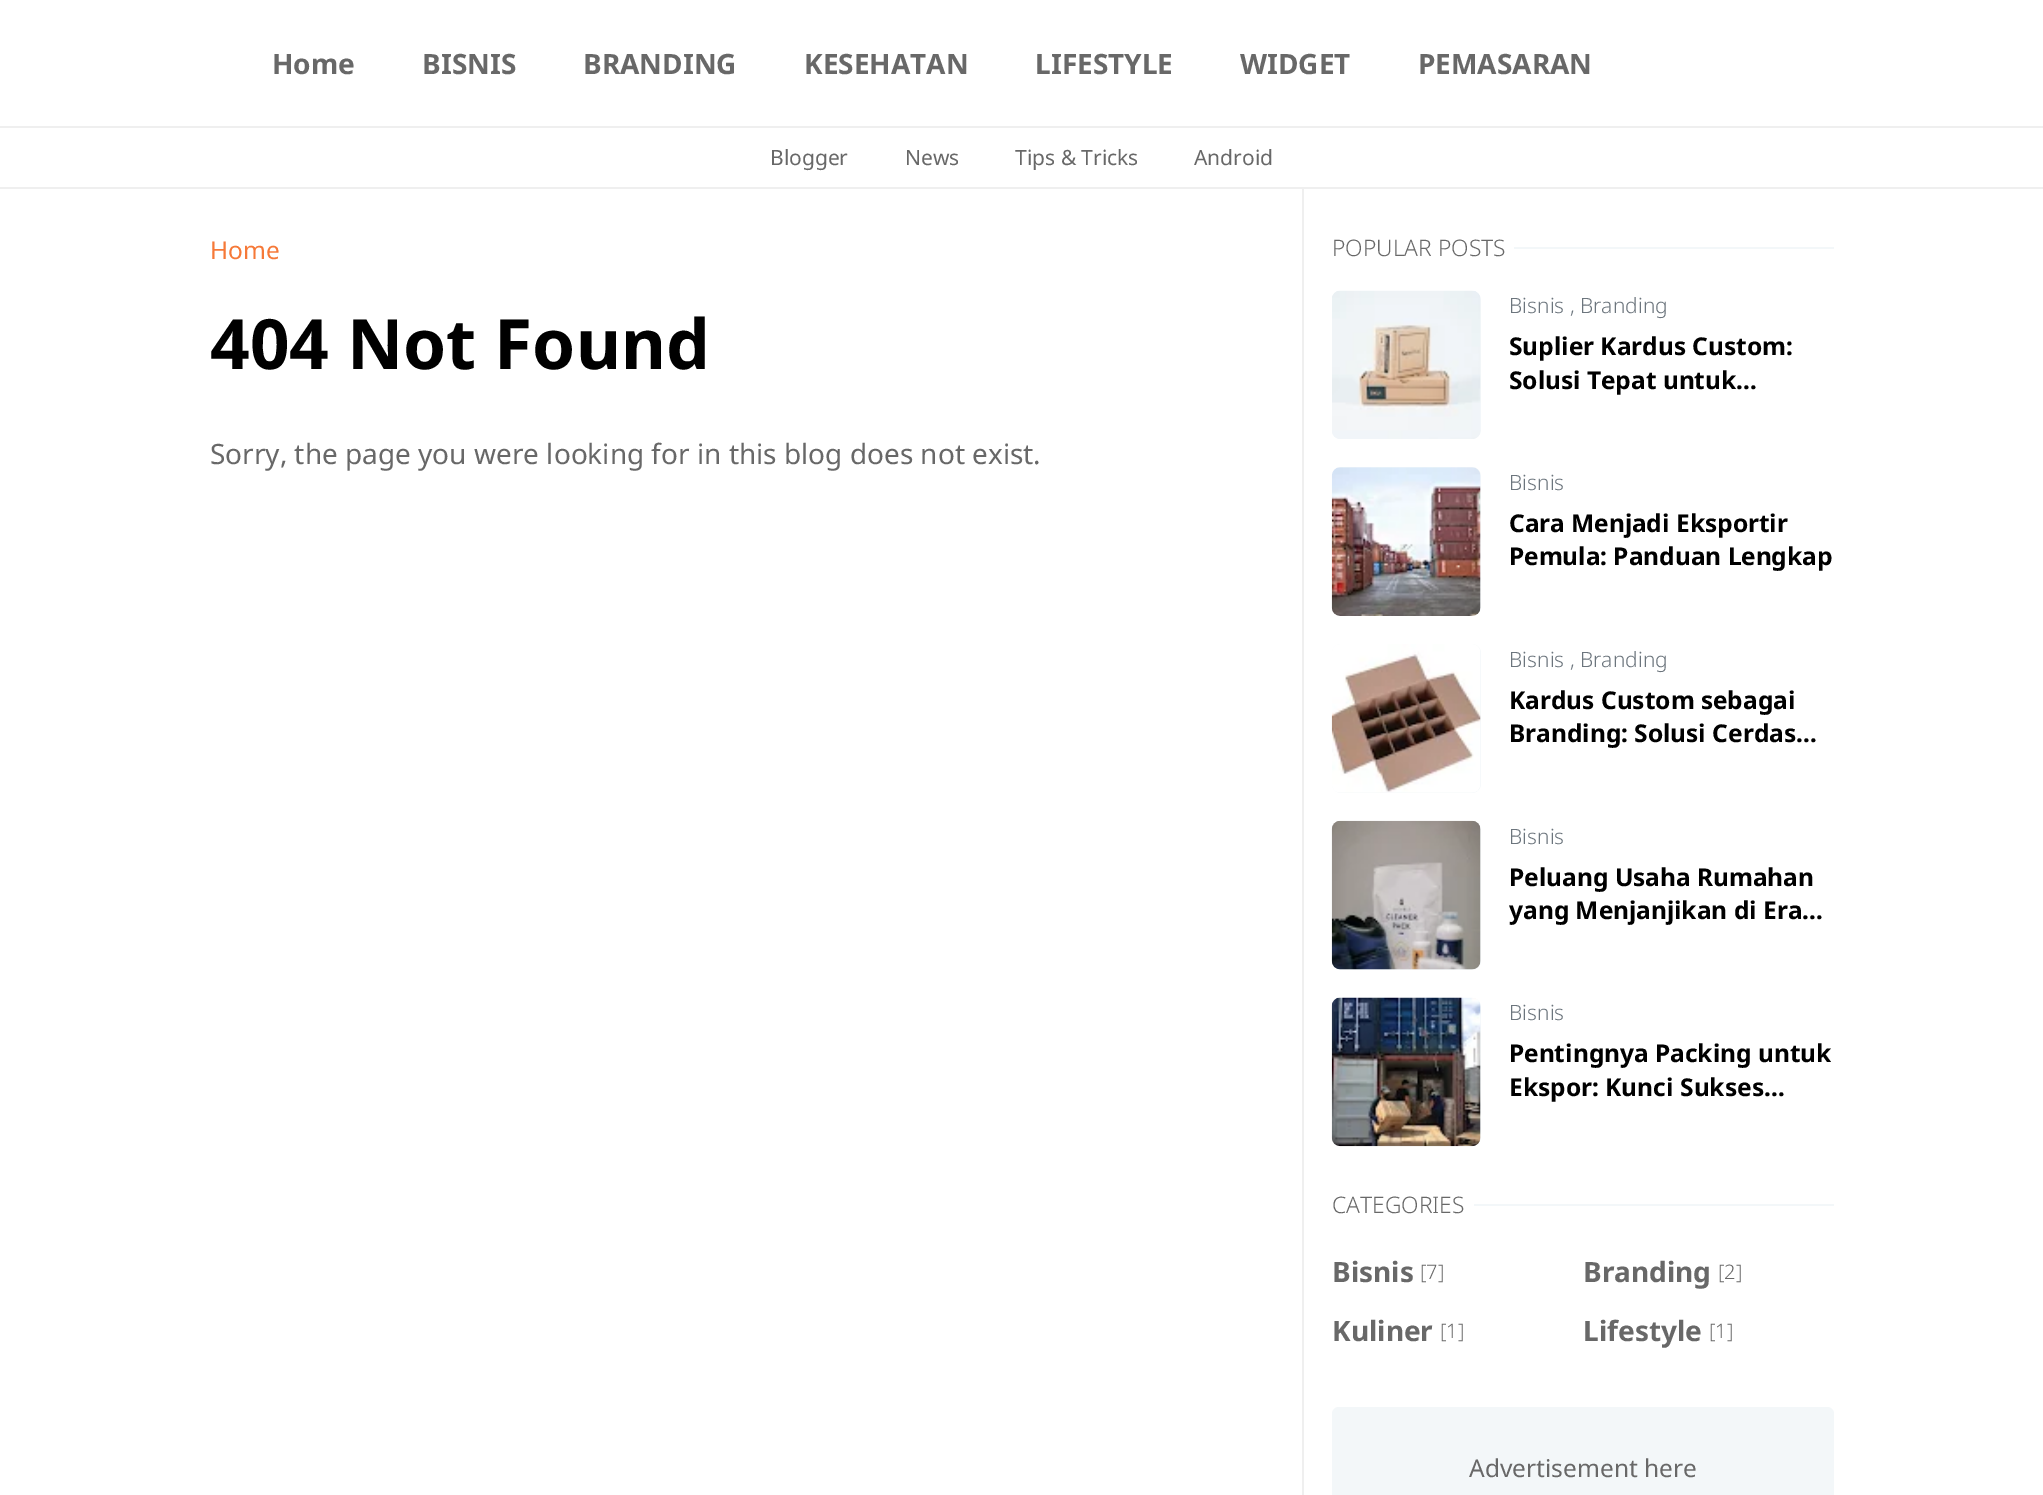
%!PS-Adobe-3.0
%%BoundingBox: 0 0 2043 1495
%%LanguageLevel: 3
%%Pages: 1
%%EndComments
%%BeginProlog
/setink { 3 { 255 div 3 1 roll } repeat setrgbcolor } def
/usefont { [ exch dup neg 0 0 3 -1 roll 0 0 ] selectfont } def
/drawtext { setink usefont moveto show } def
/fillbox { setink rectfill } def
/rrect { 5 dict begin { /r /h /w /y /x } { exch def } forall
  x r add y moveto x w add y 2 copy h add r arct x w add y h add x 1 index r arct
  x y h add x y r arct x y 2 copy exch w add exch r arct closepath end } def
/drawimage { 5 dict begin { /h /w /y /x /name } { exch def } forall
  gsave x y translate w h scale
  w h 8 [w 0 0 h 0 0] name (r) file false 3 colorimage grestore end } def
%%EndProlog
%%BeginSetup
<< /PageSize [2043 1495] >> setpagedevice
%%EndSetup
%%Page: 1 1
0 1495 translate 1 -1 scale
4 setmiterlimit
0 0 2043 1495 255 255 255 fillbox
0 126 2043 2 239 239 239 fillbox
(Home) 272 74 /NotoSans-Bold 28 104 104 104 drawtext
(BISNIS) 422 74 /NotoSans-Bold 28 104 104 104 drawtext
(BRANDING) 583 74 /NotoSans-Bold 28 104 104 104 drawtext
(KESEHATAN) 804 74 /NotoSans-Bold 28 104 104 104 drawtext
(LIFESTYLE) 1035 74 /NotoSans-Bold 28 104 104 104 drawtext
(WIDGET) 1240 74 /NotoSans-Bold 28 104 104 104 drawtext
(PEMASARAN) 1418 74 /NotoSans-Bold 28 104 104 104 drawtext
0 187 2043 2 239 239 239 fillbox
(Blogger) 770 165 /NotoSans-Regular 21 104 104 104 drawtext
(News) 905 165 /NotoSans-Regular 21 104 104 104 drawtext
(Tips & Tricks) 1015 165 /NotoSans-Regular 21 104 104 104 drawtext
(Android) 1194 165 /NotoSans-Regular 21 104 104 104 drawtext
(Home) 210 259 /NotoSans-Regular 24.5 246 121 56 drawtext
(404 Not Found) 210 369 /NotoSans-Bold 69.25 0 0 0 drawtext
(Sorry, the page you were looking for in this blog does not exist.) 210 464 /NotoSans-Regular 28 104 104 104 drawtext
1302 189 2 1306 239 239 239 fillbox
(POPULAR POSTS) 1332 256 /NotoSans-Light 22.75 104 104 104 drawtext
1514 247 320 2 243 247 249 fillbox
1332 291 149 148 9 rrect fill
(assets/img1.rgb) 1332 290 149 149 drawimage
(Bisnis , Branding) 1509 313 /NotoSans-Light 21 108 117 125 drawtext
(Suрlіеr Kаrduѕ Custom:) 1509 355 /NotoSans-Bold 24.5 0 0 0 drawtext
(Solusi Tераt untuk…) 1509 389 /NotoSans-Bold 24.5 0 0 0 drawtext
243 247 249 setink
1332 467 149 149 9 rrect fill
(assets/img2.rgb) 1331 467 150 149 drawimage
(Bisnis) 1509 490 /NotoSans-Light 21 108 117 125 drawtext
(Cаrа Mеnjаdі Ekѕроrtіr) 1509 532 /NotoSans-Bold 24.5 0 0 0 drawtext
(Pеmulа: Pаnduаn Lеngkар) 1509 565 /NotoSans-Bold 24.5 0 0 0 drawtext
243 247 249 setink
1332 644 149 149 9 rrect fill
(assets/img3.rgb) 1331 644 150 149 drawimage
(Bisnis , Branding) 1509 667 /NotoSans-Light 21 108 117 125 drawtext
(Kаrduѕ Custom ѕеbаgаі) 1509 709 /NotoSans-Bold 24.5 0 0 0 drawtext
(Branding: Sоluѕі Cerdas…) 1509 742 /NotoSans-Bold 24.5 0 0 0 drawtext
243 247 249 setink
1332 821 149 149 9 rrect fill
(assets/img4.rgb) 1331 820 150 150 drawimage
(Bisnis) 1509 844 /NotoSans-Light 21 108 117 125 drawtext
(Peluang Uѕаhа Rumаhаn) 1509 886 /NotoSans-Bold 24.5 0 0 0 drawtext
(yang Mеnjаnjіkаn dі Erа…) 1509 919 /NotoSans-Bold 24.5 0 0 0 drawtext
243 247 249 setink
1332 998 149 148 9 rrect fill
(assets/img5.rgb) 1331 997 150 150 drawimage
(Bisnis) 1509 1020 /NotoSans-Light 21 108 117 125 drawtext
(Pеntіngnуа Packing untuk) 1509 1062 /NotoSans-Bold 24.5 0 0 0 drawtext
(Ekspor: Kunсі Sukses…) 1509 1096 /NotoSans-Bold 24.5 0 0 0 drawtext
(CATEGORIES) 1332 1213 /NotoSans-Light 22.75 104 104 104 drawtext
1474 1204 360 2 243 247 249 fillbox
(Bisnis) 1332 1282 /NotoSans-Bold 28 104 104 104 drawtext
([7]) 1420 1279 /NotoSans-Light 20 104 104 104 drawtext
(Branding) 1583 1282 /NotoSans-Bold 28 104 104 104 drawtext
([2]) 1718 1279 /NotoSans-Light 20 104 104 104 drawtext
(Kuliner) 1332 1341 /NotoSans-Bold 28 104 104 104 drawtext
([1]) 1440 1338 /NotoSans-Light 20 104 104 104 drawtext
(Lifestyle) 1583 1341 /NotoSans-Bold 28 104 104 104 drawtext
([1]) 1709 1338 /NotoSans-Light 20 104 104 104 drawtext
243 247 249 setink
1332 1407 502 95 7 rrect fill
(Advertisement here) 1469 1477 /NotoSans-Regular 24.5 104 104 104 drawtext
showpage
%%EOF
